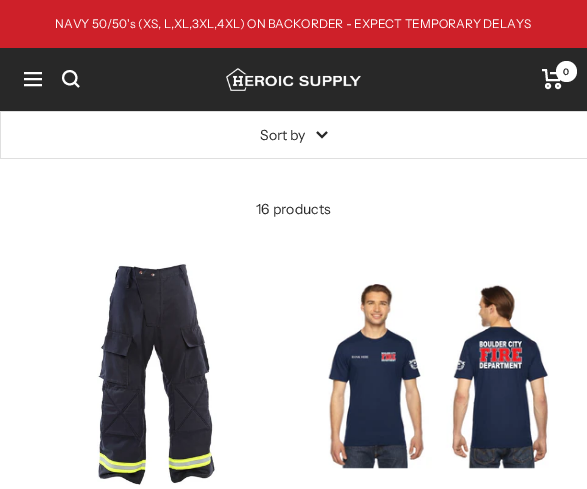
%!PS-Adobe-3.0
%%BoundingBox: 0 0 587 489
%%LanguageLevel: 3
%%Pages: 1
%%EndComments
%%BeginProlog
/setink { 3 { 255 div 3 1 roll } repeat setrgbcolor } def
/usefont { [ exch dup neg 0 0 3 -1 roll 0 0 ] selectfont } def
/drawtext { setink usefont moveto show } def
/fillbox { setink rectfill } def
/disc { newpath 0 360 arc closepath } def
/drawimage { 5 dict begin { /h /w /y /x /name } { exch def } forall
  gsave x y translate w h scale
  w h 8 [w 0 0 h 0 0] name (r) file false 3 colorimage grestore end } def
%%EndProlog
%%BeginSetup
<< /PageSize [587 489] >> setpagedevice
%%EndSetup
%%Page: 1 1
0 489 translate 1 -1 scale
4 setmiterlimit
0 0 587 489 255 255 255 fillbox
0 0 587 48 206 32 41 fillbox
(NAVY 50/50's \(XS, L,XL,3XL,4XL\) ON BACKORDER - EXPECT TEMPORARY DELAYS) 55 28 /InstrumentSans-Regular 12 255 255 255 drawtext
0 48 587 63 40 40 40 fillbox
255 255 255 setink
2 setlinewidth
24 73 moveto 42 73 lineto 24 85 moveto 42 85 lineto closepath 24 79 moveto 42 79 lineto closepath 74.5 82.5 moveto 80.5 76 71.5 67 65 73 curveto 59 79.5 68 88.5 74.5 82.5 curveto closepath 74.5 82.5 moveto 79 87 lineto stroke
(assets/img1.rgb) 226 68 135 23 drawimage
542 70 moveto 546 70 lineto 547 80 lineto 559 80 lineto 561 73 lineto 550 73 lineto stroke
548 86 2 disc stroke
558 86 2 disc stroke
566.5 71.5 10.5 disc fill
(0) 563 75 /InstrumentSans-SemiBold 9 40 40 40 drawtext
0 111 587 1 223 223 223 fillbox
0 158 587 1 223 223 223 fillbox
0 111 1 48 223 223 223 fillbox
(Sort by) 260 140 /InstrumentSans-Regular 14 40 40 40 drawtext
317 132 moveto 322 137 lineto 327 132 lineto stroke
(16 products) 256 214 /InstrumentSans-Regular 14 40 40 40 drawtext
(assets/img2.rgb) 97 263 120 222 drawimage
(assets/img3.rgb) 328 280 221 189 drawimage
showpage
%%EOF
